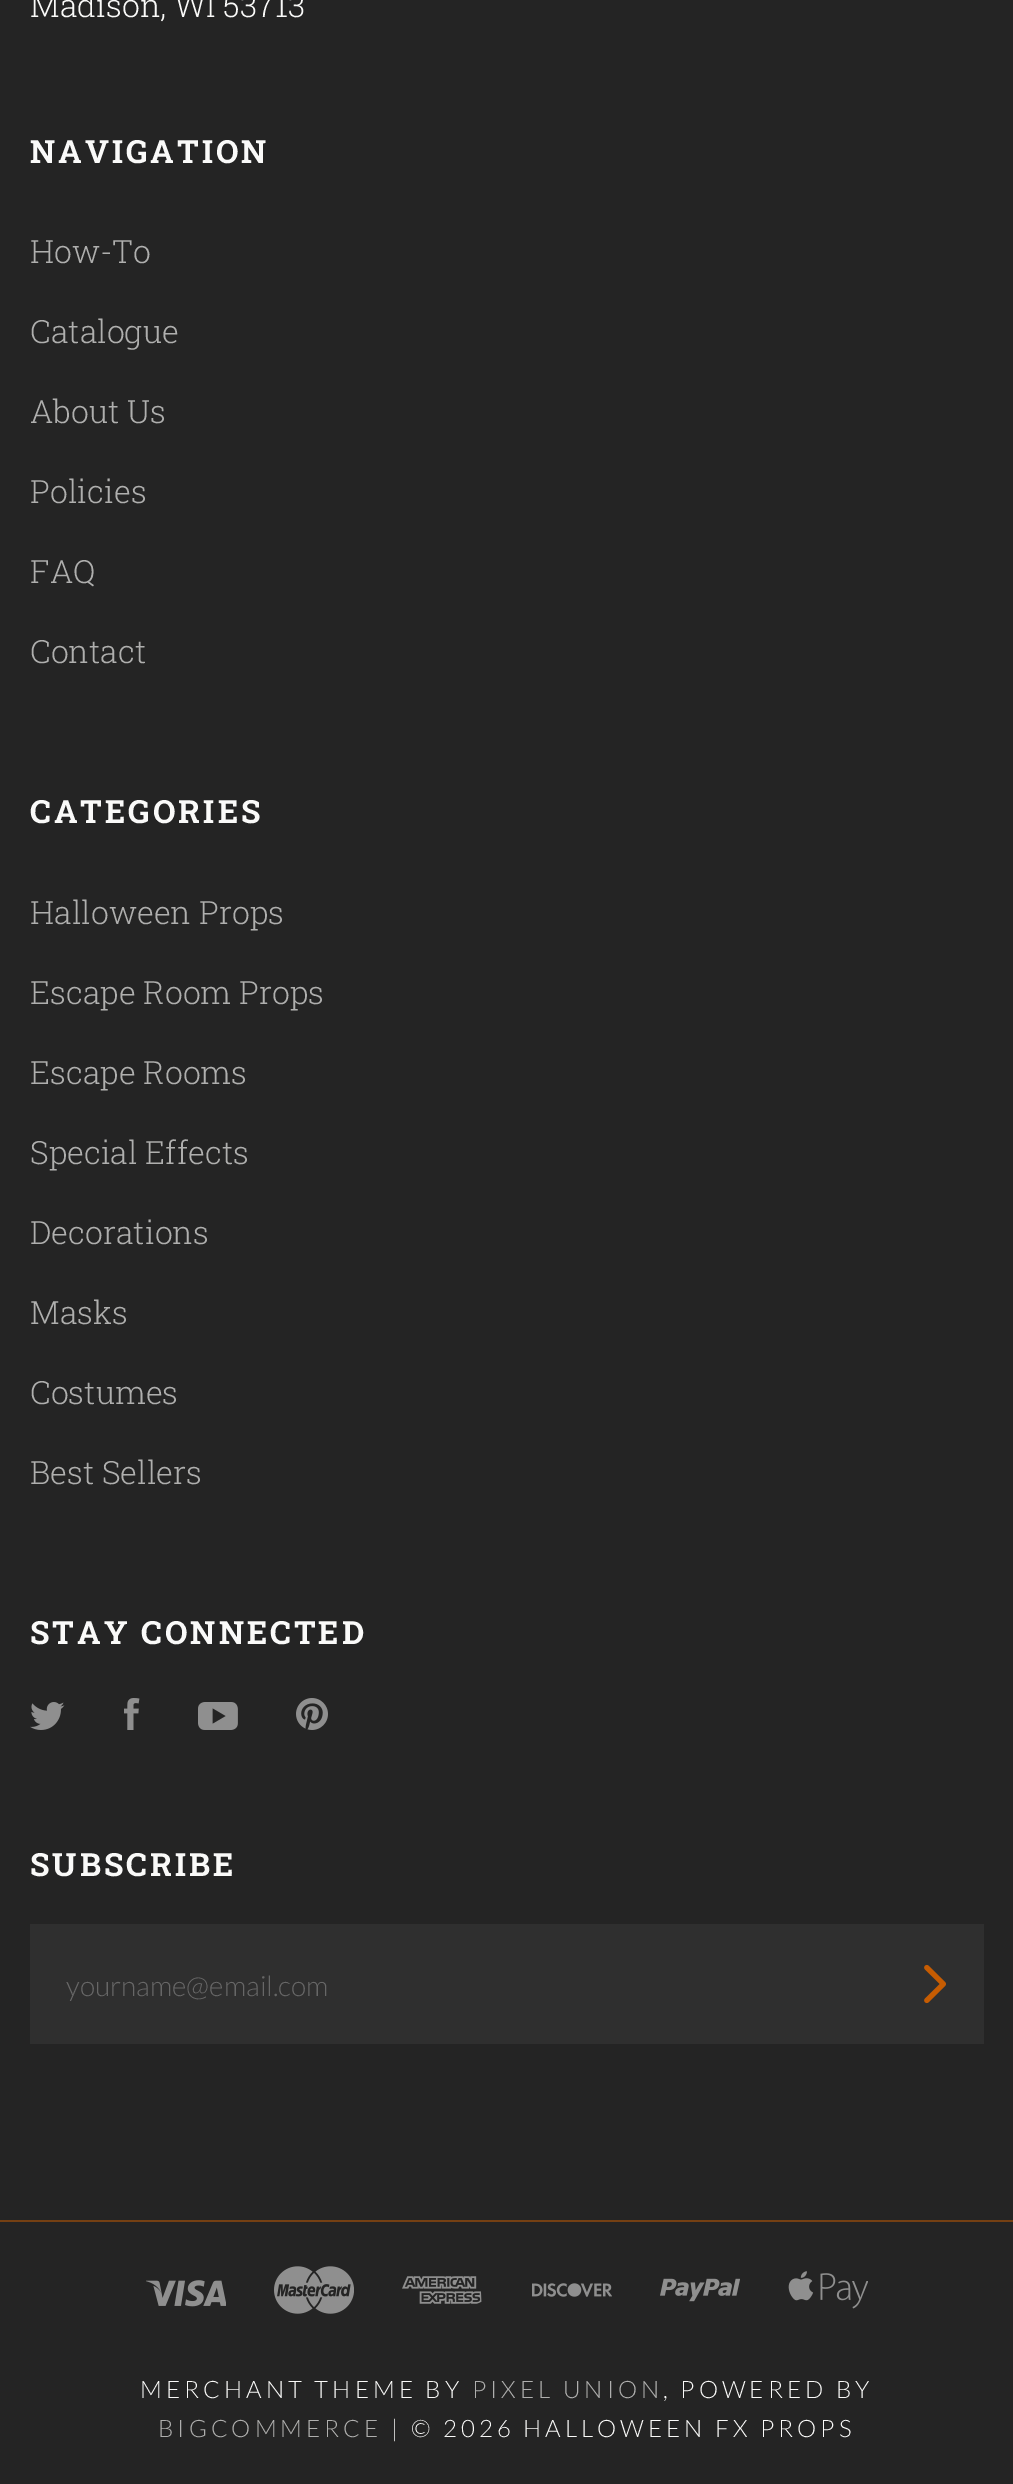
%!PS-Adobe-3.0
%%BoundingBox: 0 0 1013 2484
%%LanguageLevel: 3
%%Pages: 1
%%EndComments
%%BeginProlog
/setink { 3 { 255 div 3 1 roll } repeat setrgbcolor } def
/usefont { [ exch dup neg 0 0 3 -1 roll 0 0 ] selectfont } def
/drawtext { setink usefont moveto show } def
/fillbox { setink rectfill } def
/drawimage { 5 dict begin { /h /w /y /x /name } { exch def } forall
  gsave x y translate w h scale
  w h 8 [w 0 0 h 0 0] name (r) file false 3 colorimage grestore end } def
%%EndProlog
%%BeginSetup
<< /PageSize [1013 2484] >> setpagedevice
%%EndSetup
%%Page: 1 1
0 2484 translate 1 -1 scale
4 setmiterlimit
0 0 1013 2484 36 36 36 fillbox
(Madison, WI 53713) 30 17 /RobotoSlab-Light 32 250 250 249 drawtext
/RobotoSlab-Bold 32 usefont
30 163 moveto 3 0 (NAVIGATION) ashow
(How-To) 30 263 /RobotoSlab-Light 32 175 175 174 drawtext
(Catalogue) 30 343 /RobotoSlab-Light 32 175 175 174 drawtext
(About Us) 30 423 /RobotoSlab-Light 32 175 175 174 drawtext
(Policies) 30 503 /RobotoSlab-Light 32 175 175 174 drawtext
(FAQ) 30 583 /RobotoSlab-Light 32 175 175 174 drawtext
(Contact) 30 663 /RobotoSlab-Light 32 175 175 174 drawtext
/RobotoSlab-Bold 32 usefont
250 250 249 setink
30 823 moveto 3 0 (CATEGORIES) ashow
(Halloween Props) 30 924 /RobotoSlab-Light 32 175 175 174 drawtext
(Escape Room Props) 30 1004 /RobotoSlab-Light 32 175 175 174 drawtext
(Escape Rooms) 30 1084 /RobotoSlab-Light 32 175 175 174 drawtext
(Special Effects) 30 1164 /RobotoSlab-Light 32 175 175 174 drawtext
(Decorations) 30 1244 /RobotoSlab-Light 32 175 175 174 drawtext
(Masks) 30 1324 /RobotoSlab-Light 32 175 175 174 drawtext
(Costumes) 30 1404 /RobotoSlab-Light 32 175 175 174 drawtext
(Best Sellers) 30 1484 /RobotoSlab-Light 32 175 175 174 drawtext
/RobotoSlab-Bold 32 usefont
250 250 249 setink
30 1644 moveto 3 0 (STAY CONNECTED) ashow
(assets/img1.rgb) 30 1702 35 28 drawimage
(assets/img2.rgb) 124 1698 16 32 drawimage
(assets/img3.rgb) 198 1702 40 28 drawimage
(assets/img4.rgb) 296 1698 32 32 drawimage
30 1876 moveto 3 0 (SUBSCRIBE) ashow
30 1924 954 120 47 47 47 fillbox
(yourname@email.com) 66 1996 /Lato-Light 28 103 103 103 drawtext
(assets/img5.rgb) 924 1964 22 40 drawimage
0 2220 1013 2 117 64 19 fillbox
(assets/img6.rgb) 146 2280 80 27 drawimage
(assets/img7.rgb) 274 2266 80 48 drawimage
(assets/img8.rgb) 402 2276 80 28 drawimage
(assets/img9.rgb) 532 2283 80 14 drawimage
(assets/img10.rgb) 660 2278 80 24 drawimage
(assets/img11.rgb) 788 2271 80 38 drawimage
/Lato-Light 24 usefont
250 250 249 setink
140 2398 moveto 4 0 (MERCHANT THEME BY) ashow
175 175 174 setink
472 2398 moveto 4 0 (PIXEL UNION) ashow
250 250 249 setink
663 2398 moveto 4 0 (, POWERED BY) ashow
175 175 174 setink
158 2437 moveto 4 0 (BIGCOMMERCE) ashow
250 250 249 setink
391 2437 moveto 4 0 (| © 2026 HALLOWEEN FX PROPS) ashow
showpage
%%EOF
